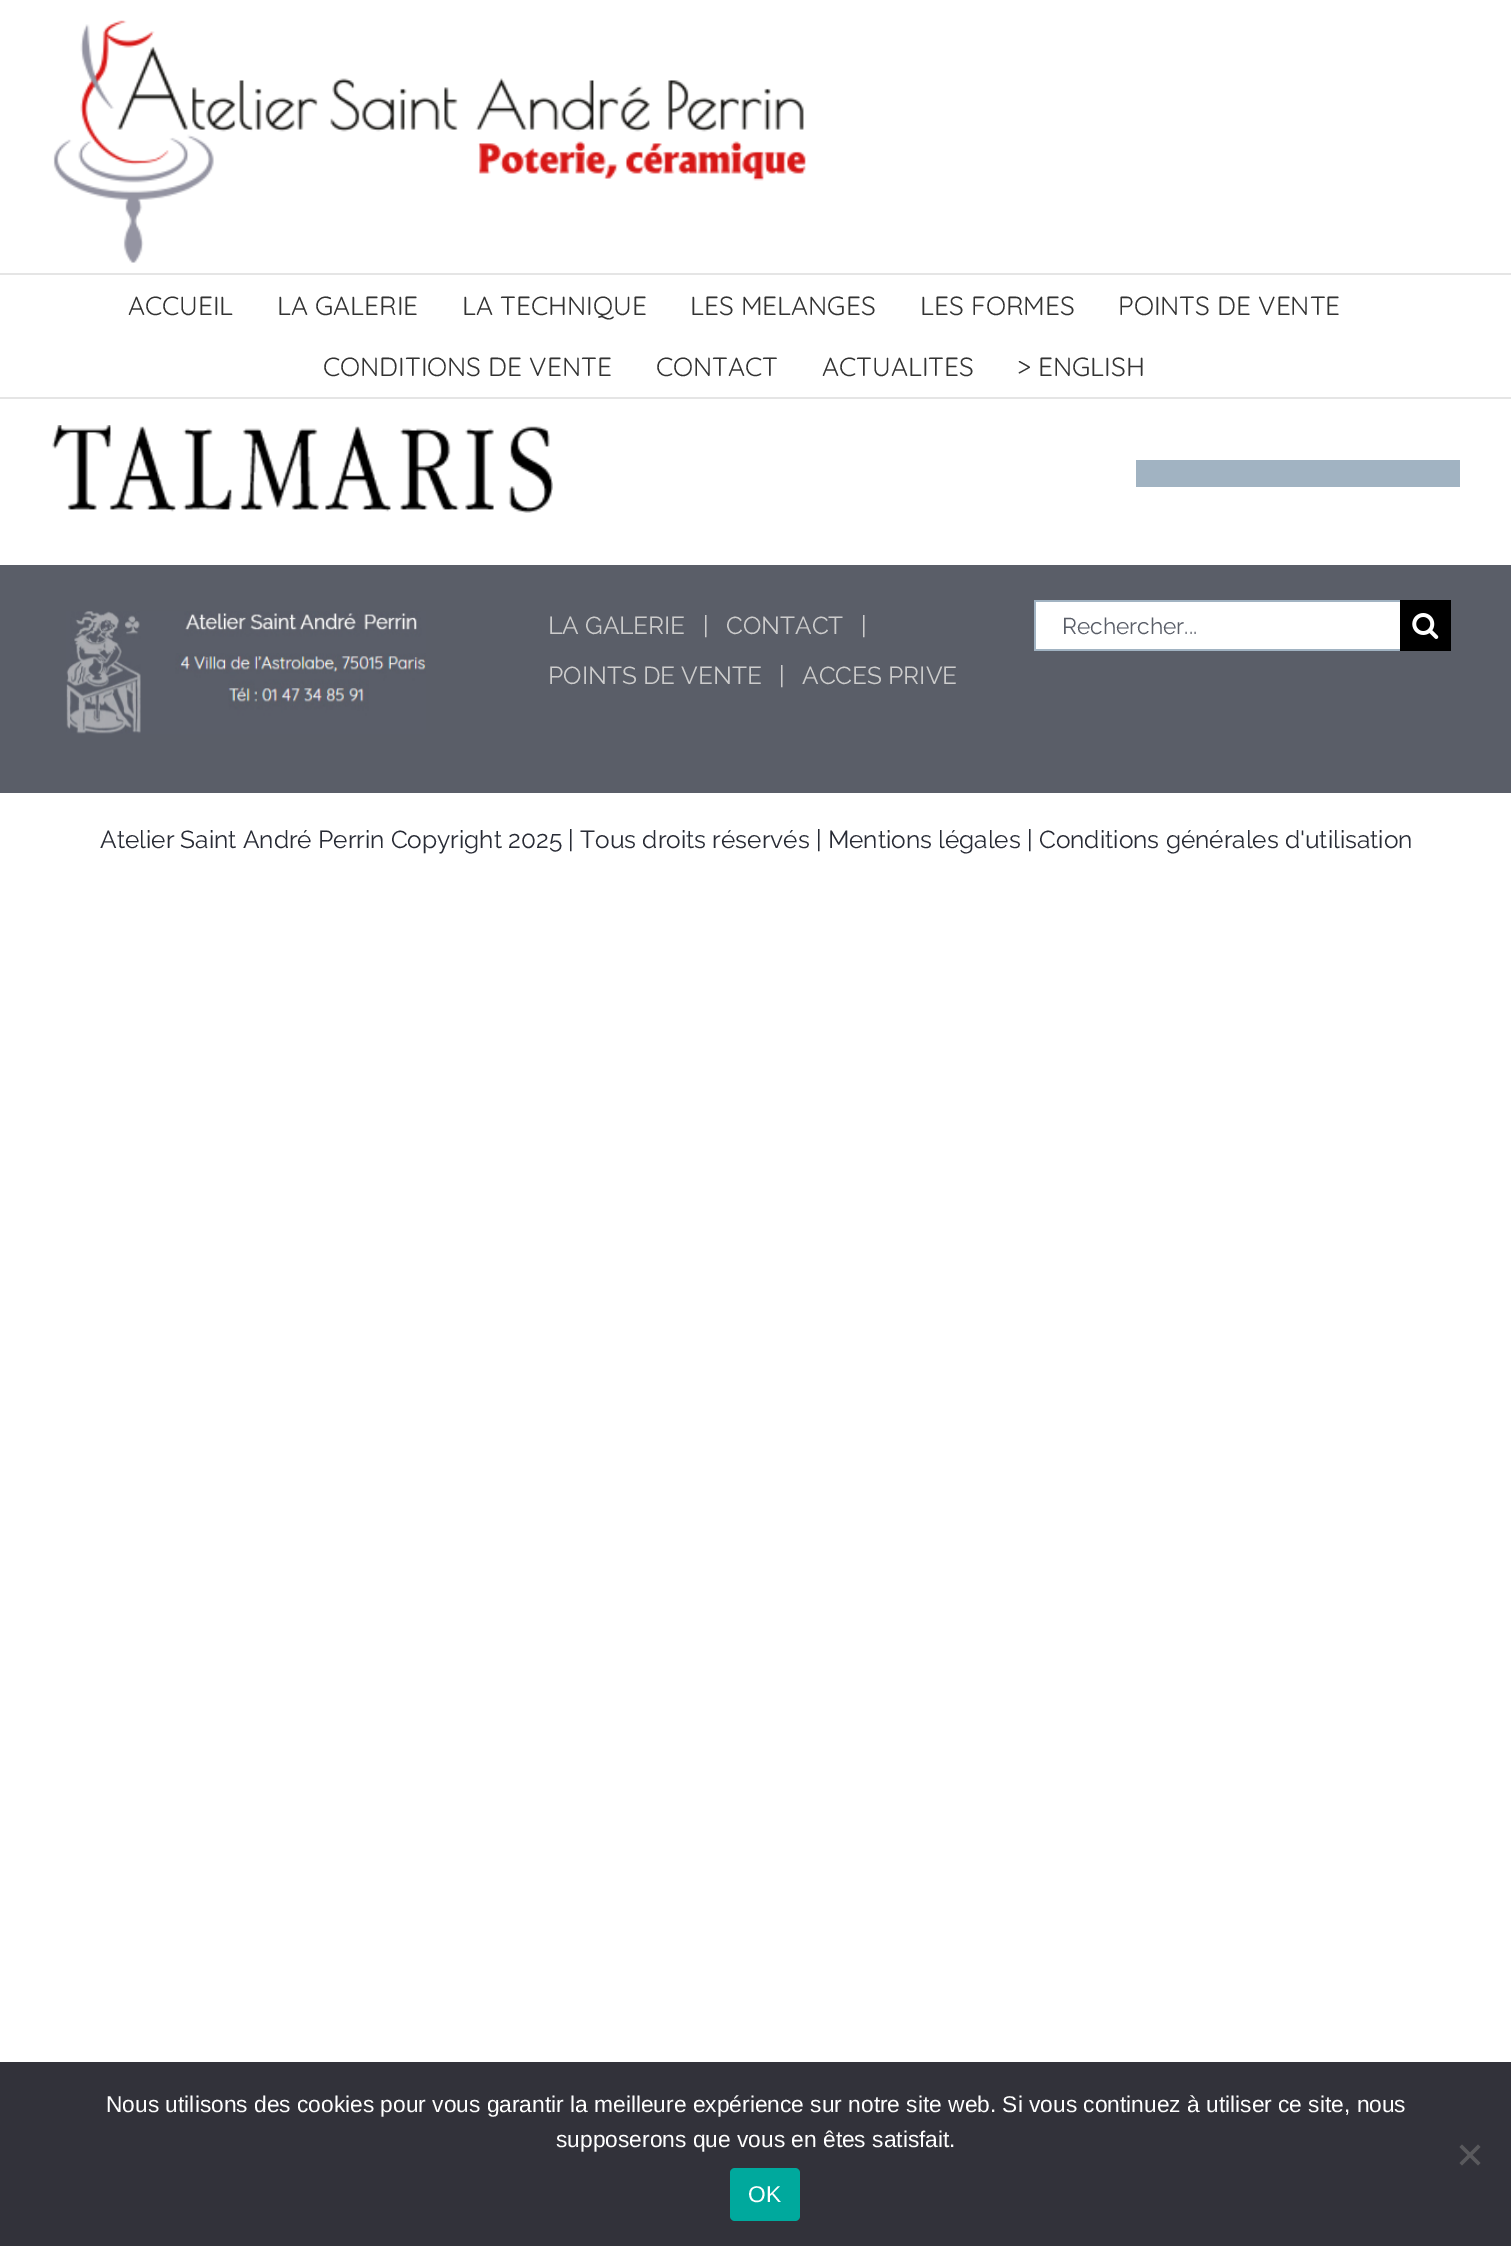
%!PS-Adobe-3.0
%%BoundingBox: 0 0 1511 2246
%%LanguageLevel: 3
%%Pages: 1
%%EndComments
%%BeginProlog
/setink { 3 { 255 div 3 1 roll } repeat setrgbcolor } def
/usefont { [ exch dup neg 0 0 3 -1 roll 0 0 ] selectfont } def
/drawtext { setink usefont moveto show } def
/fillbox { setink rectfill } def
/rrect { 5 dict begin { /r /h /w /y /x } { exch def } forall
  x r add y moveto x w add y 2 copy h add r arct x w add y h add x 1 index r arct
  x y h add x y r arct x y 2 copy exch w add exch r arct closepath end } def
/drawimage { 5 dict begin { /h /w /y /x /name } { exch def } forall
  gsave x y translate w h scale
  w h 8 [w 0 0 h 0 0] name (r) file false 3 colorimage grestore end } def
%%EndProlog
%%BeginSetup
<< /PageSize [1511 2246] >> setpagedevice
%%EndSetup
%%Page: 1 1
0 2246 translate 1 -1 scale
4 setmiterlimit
0 0 1511 2246 255 255 255 fillbox
0 273 1511 2 229 229 229 fillbox
(assets/img1.rgb) 53 20 753 243 drawimage
0 397 1511 2 229 229 229 fillbox
(ACCUEIL) 128 315 /Quicksand-Regular 26.25 51 51 51 drawtext
(LA GALERIE) 277 315 /Quicksand-Regular 26.25 51 51 51 drawtext
(LA TECHNIQUE) 462 315 /Quicksand-Regular 26.25 51 51 51 drawtext
(LES MELANGES) 690 315 /Quicksand-Regular 26.25 51 51 51 drawtext
(LES FORMES) 920 315 /Quicksand-Regular 26.25 51 51 51 drawtext
(POINTS DE VENTE) 1118 315 /Quicksand-Regular 26.25 51 51 51 drawtext
(CONDITIONS DE VENTE) 323 376 /Quicksand-Regular 26.25 51 51 51 drawtext
(CONTACT) 656 376 /Quicksand-Regular 26.25 51 51 51 drawtext
(ACTUALITES) 822 376 /Quicksand-Regular 26.25 51 51 51 drawtext
(> ENGLISH) 1017 376 /Quicksand-Regular 26.25 51 51 51 drawtext
(assets/img2.rgb) 52 425 501 88 drawimage
1136 460 324 27 161 179 194 fillbox
0 565 1511 228 90 94 104 fillbox
(assets/img3.rgb) 66 611 360 123 drawimage
(LA GALERIE) 548 634 /Raleway-Regular 24.5 204 204 204 drawtext
(|) 703 634 /Raleway-Regular 24.5 204 204 204 drawtext
(CONTACT) 726 634 /Raleway-Regular 24.5 204 204 204 drawtext
(|) 861 634 /Raleway-Regular 24.5 204 204 204 drawtext
(POINTS DE VENTE) 548 684 /Raleway-Regular 24.5 204 204 204 drawtext
(|) 779 684 /Raleway-Regular 24.5 204 204 204 drawtext
(ACCES PRIVE) 802 684 /Raleway-Regular 24.5 204 204 204 drawtext
1036 602 364 47 255 255 255 fillbox
1034 600 366 2 161 179 194 fillbox
1034 649 366 2 161 179 194 fillbox
1034 600 2 51 161 179 194 fillbox
(Rechercher...) 1062 634 /Raleway-Regular 22.75 90 94 104 drawtext
1400 600 51 51 0 0 0 fillbox
(assets/img4.rgb) 1412 613 27 26 drawimage
(Atelier Saint André Perrin Copyright 2025 | Tous droits réservés | Mentions légales | Conditions générales d'utilisation) 100 848 /Raleway-Regular 24.5 40 43 53 drawtext
0 2062 1511 184 50 50 58 fillbox
(Nous utilisons des cookies pour vous garantir la meilleure expérience sur notre site web. Si vous continuez à utiliser ce site, nous) 106 2112 /LiberationSans-Regular 22.75 255 255 255 drawtext
(supposerons que vous en êtes satisfait.) 556 2147 /LiberationSans-Regular 22.75 255 255 255 drawtext
89 89 93 setink
1478 2144.5 moveto 1480.5 2147 lineto 1462 2165.5 lineto 1459.5 2163 lineto closepath fill
1459.5 2147 moveto 1462 2144.5 lineto 1480.5 2163 lineto 1478 2165.5 lineto closepath fill
0 169 157 setink
730 2168 70 53 5 rrect fill
(OK) 748 2202 /LiberationSans-Regular 22.75 255 255 255 drawtext
showpage
%%EOF
